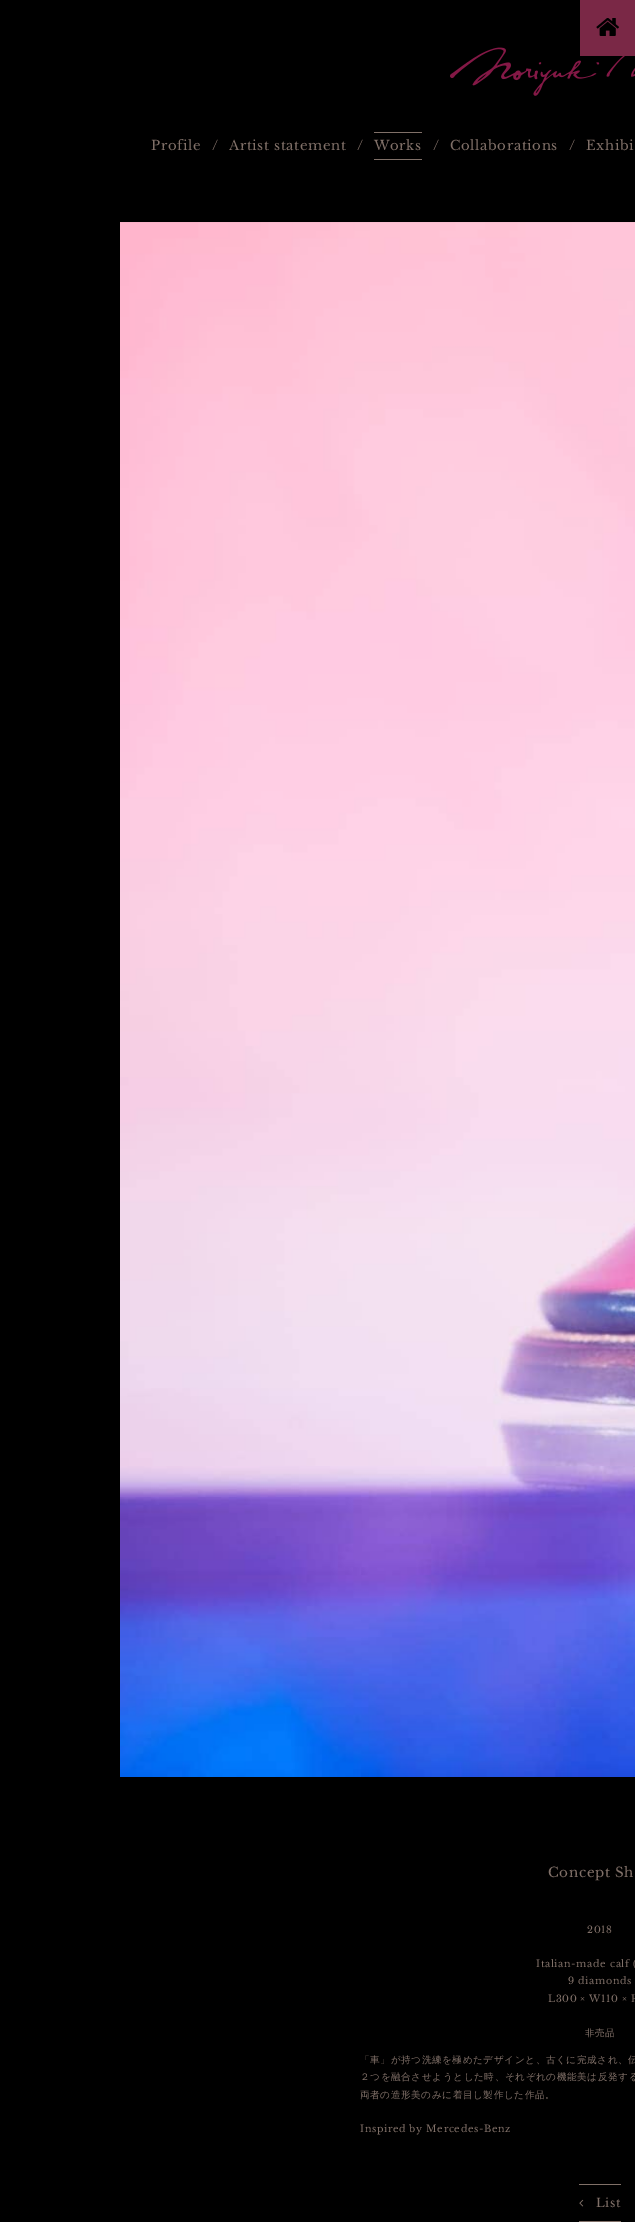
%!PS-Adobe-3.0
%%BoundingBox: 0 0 635 2222
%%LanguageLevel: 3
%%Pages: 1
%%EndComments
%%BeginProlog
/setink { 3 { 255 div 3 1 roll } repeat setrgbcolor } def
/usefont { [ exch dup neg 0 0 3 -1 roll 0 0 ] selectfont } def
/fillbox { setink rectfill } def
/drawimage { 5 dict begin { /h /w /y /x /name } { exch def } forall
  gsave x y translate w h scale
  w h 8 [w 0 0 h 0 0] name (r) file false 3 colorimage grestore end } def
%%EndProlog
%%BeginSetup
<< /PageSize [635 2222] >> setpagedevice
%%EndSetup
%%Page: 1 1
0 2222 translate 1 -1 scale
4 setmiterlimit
0 0 635 2222 0 0 0 fillbox
(assets/img2.rgb) 450 47 185 49 drawimage
580 0 55 56 122 40 70 fillbox
(assets/img1.rgb) 596 18 23 18 drawimage
/LibreBaskerville-Regular 13.25 usefont
128 112 104 setink
151 150 moveto 0.6 0 (Profile) ashow
212 150 moveto 0.6 0 (/) ashow
229 150 moveto 0.6 0 (Artist statement) ashow
357 150 moveto 0.6 0 (/) ashow
374 132 48 1 128 112 104 fillbox
374 159 48 1 128 112 104 fillbox
374 150 moveto 0.6 0 (Works) ashow
433 150 moveto 0.6 0 (/) ashow
450 150 moveto 0.6 0 (Collaborations) ashow
569 150 moveto 0.6 0 (/) ashow
586 150 moveto 0.6 0 (Exhibi) ashow
(assets/img3.rgb) 120 222 515 1555 drawimage
/LibreBaskerville-Regular 13.5 usefont
548 1877 moveto 0.6 0 (Concept Sh) ashow
/LibreBaskerville-Regular 9.6 usefont
587 1933 moveto 0.6 0 (2018) ashow
536 1967 moveto 0.6 0 (Italian-made calf \() ashow
568 1984 moveto 0.6 0 (9 diamonds) ashow
548 2002 moveto 0.6 0 (L300 × W110 × H) ashow
/WenQuanYiZenHei-Medium 9.6 usefont
585 2036 moveto 0.6 0 (非売品) ashow
360 2063 moveto 0.6 0 (「車」が持つ洗練を極めたデザインと、古くに完成され、伝) ashow
360 2080 moveto 0.6 0 (２つを融合させようとした時、それぞれの機能美は反発する) ashow
360 2098 moveto 0.6 0 (両者の造形美のみに着目し製作した作品。) ashow
/LibreBaskerville-Regular 9.6 usefont
360 2132 moveto 0.6 0 (Inspired by Mercedes-Benz) ashow
579 2184 42 1 128 112 104 fillbox
579 2221 42 1 128 112 104 fillbox
(assets/img4.rgb) 579 2199 5 8 drawimage
/LibreBaskerville-Regular 12 usefont
596 2207 moveto 0.6 0 (List) ashow
showpage
%%EOF
